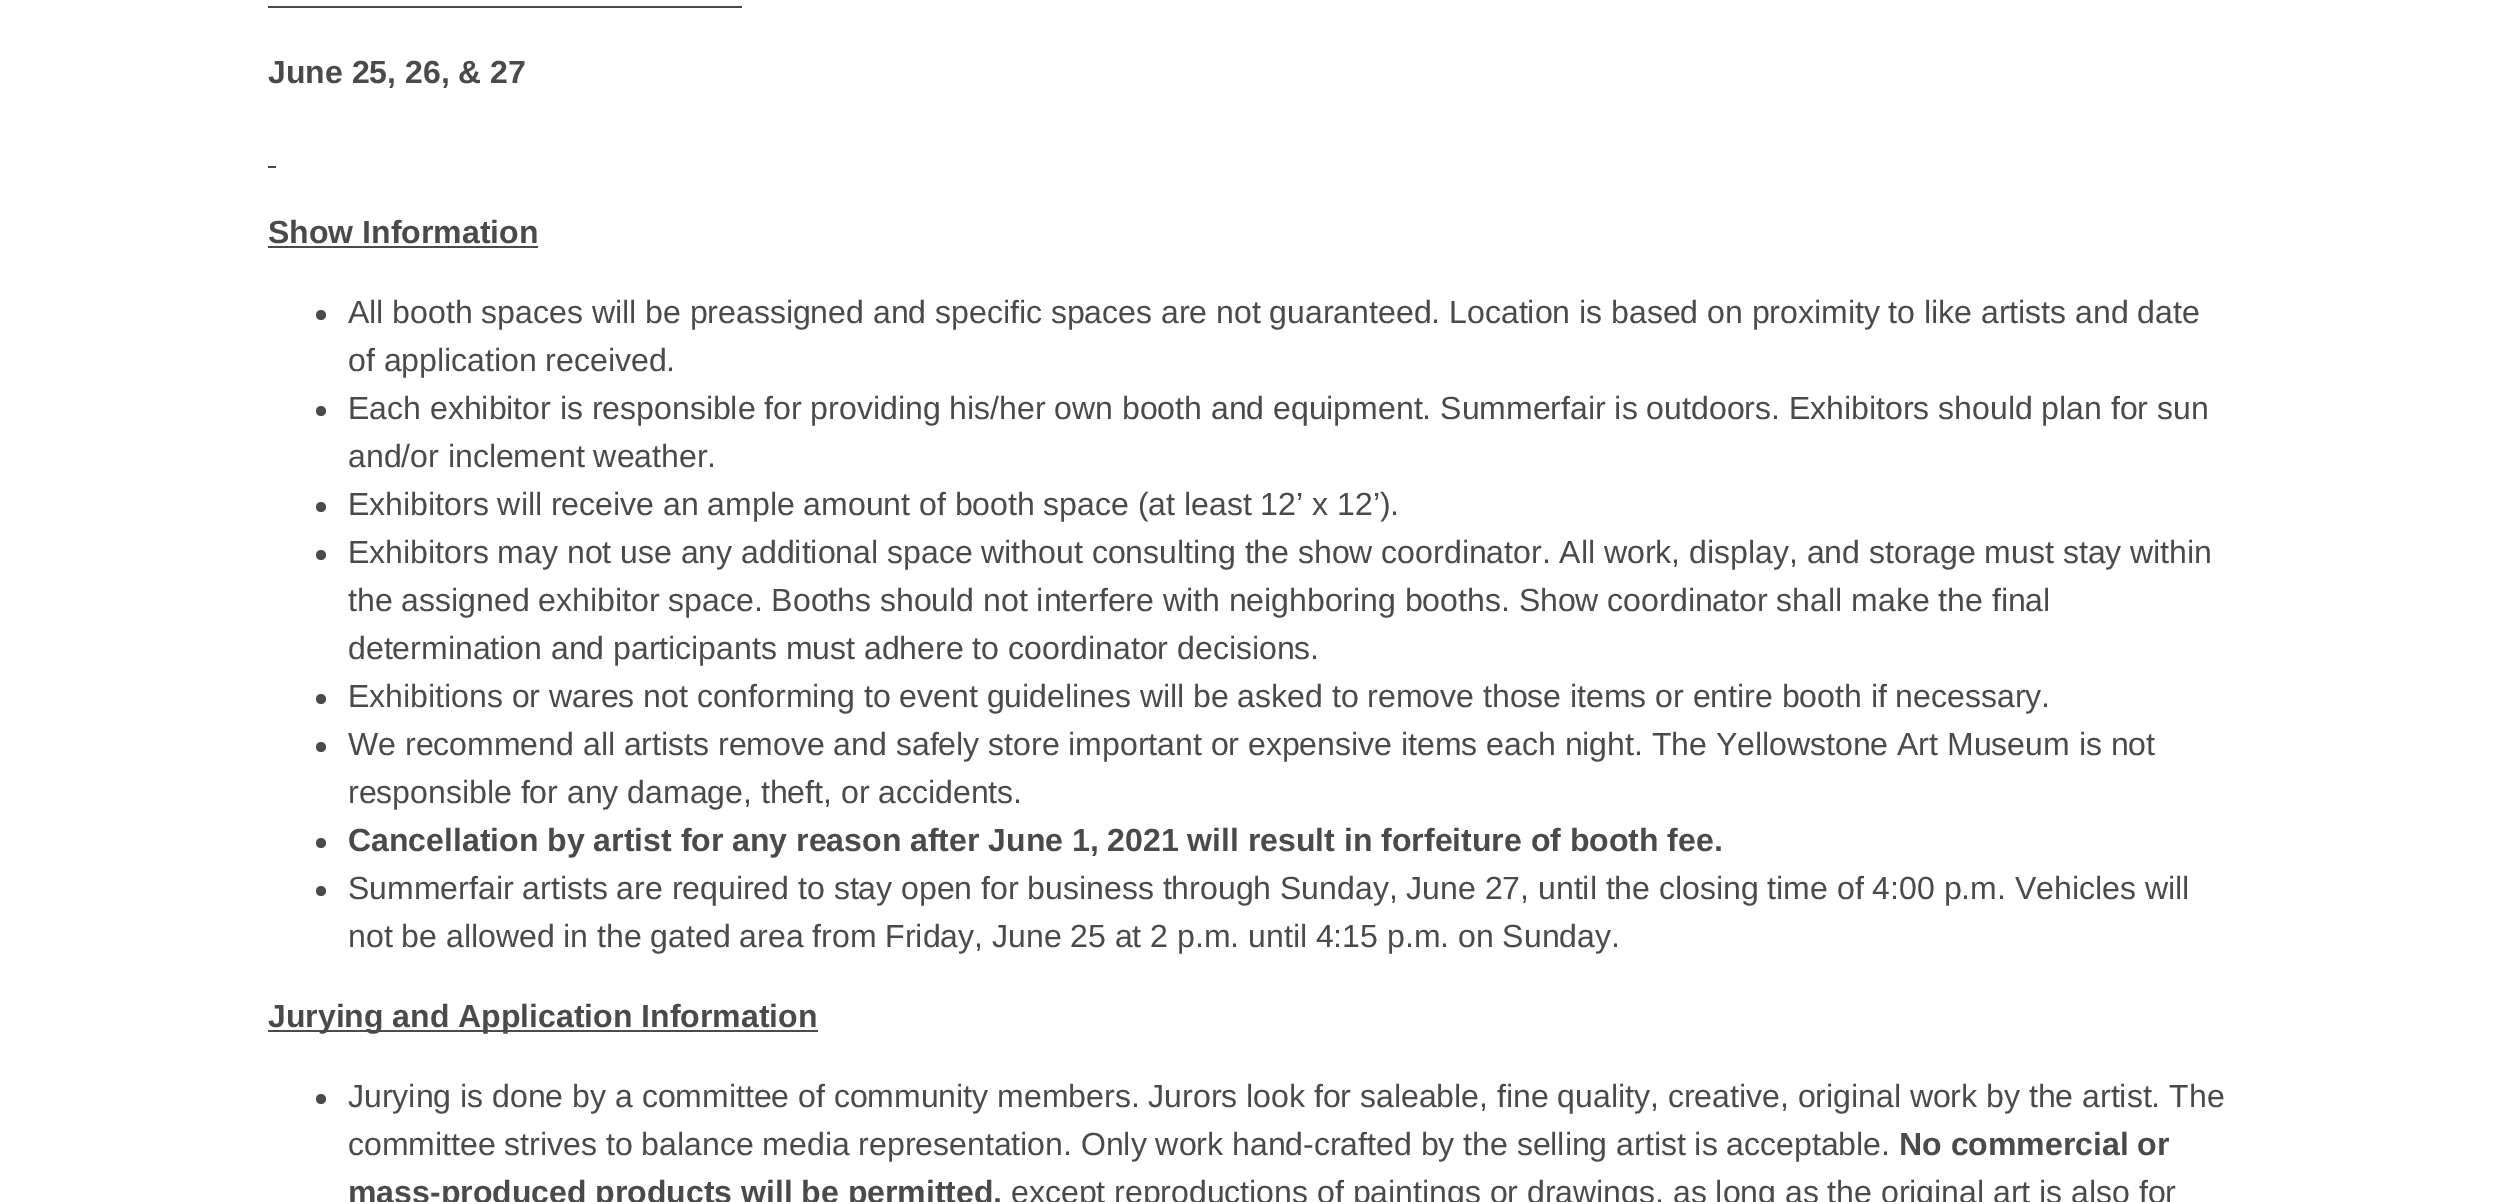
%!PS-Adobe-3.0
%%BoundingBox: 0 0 2495 1202
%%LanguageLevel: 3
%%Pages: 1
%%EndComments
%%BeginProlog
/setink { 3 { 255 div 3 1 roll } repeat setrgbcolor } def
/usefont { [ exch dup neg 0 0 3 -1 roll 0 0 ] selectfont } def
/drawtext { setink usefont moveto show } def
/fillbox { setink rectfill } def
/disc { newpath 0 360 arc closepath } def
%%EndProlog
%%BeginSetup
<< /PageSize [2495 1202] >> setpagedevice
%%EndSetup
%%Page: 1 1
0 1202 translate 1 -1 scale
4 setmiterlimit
0 0 2495 1202 255 255 255 fillbox
268 6 474 2 74 74 74 fillbox
(June 25, 26, & 27) 268 83 /LiberationSans-Bold 32 74 74 74 drawtext
268 166 8 2 74 74 74 fillbox
(Show Information) 268 243 /LiberationSans-Bold 32 74 74 74 drawtext
268 246 270 2 74 74 74 fillbox
321 315 5 disc fill
(All booth spaces will be preassigned and specific spaces are not guaranteed. Location is based on proximity to like artists and date) 348 323 /LiberationSans-Regular 32 74 74 74 drawtext
(of application received.) 348 371 /LiberationSans-Regular 32 74 74 74 drawtext
321 411 5 disc fill
(Each exhibitor is responsible for providing his/her own booth and equipment. Summerfair is outdoors. Exhibitors should plan for sun) 348 419 /LiberationSans-Regular 32 74 74 74 drawtext
(and/or inclement weather.) 348 467 /LiberationSans-Regular 32 74 74 74 drawtext
321 507 5 disc fill
(Exhibitors will receive an ample amount of booth space \(at least 12’ x 12’\).) 348 515 /LiberationSans-Regular 32 74 74 74 drawtext
321 555 5 disc fill
(Exhibitors may not use any additional space without consulting the show coordinator. All work, display, and storage must stay within) 348 563 /LiberationSans-Regular 32 74 74 74 drawtext
(the assigned exhibitor space. Booths should not interfere with neighboring booths. Show coordinator shall make the final) 348 611 /LiberationSans-Regular 32 74 74 74 drawtext
(determination and participants must adhere to coordinator decisions.) 348 659 /LiberationSans-Regular 32 74 74 74 drawtext
321 699 5 disc fill
(Exhibitions or wares not conforming to event guidelines will be asked to remove those items or entire booth if necessary.) 348 707 /LiberationSans-Regular 32 74 74 74 drawtext
321 747 5 disc fill
(We recommend all artists remove and safely store important or expensive items each night. The Yellowstone Art Museum is not) 348 755 /LiberationSans-Regular 32 74 74 74 drawtext
(responsible for any damage, theft, or accidents.) 348 803 /LiberationSans-Regular 32 74 74 74 drawtext
321 843 5 disc fill
(Cancellation by artist for any reason after June 1, 2021 will result in forfeiture of booth fee.) 348 851 /LiberationSans-Bold 32 74 74 74 drawtext
321 891 5 disc fill
(Summerfair artists are required to stay open for business through Sunday, June 27, until the closing time of 4:00 p.m. Vehicles will) 348 899 /LiberationSans-Regular 32 74 74 74 drawtext
(not be allowed in the gated area from Friday, June 25 at 2 p.m. until 4:15 p.m. on Sunday.) 348 947 /LiberationSans-Regular 32 74 74 74 drawtext
268 1030 550 2 74 74 74 fillbox
(Jurying and Application Information) 268 1027 /LiberationSans-Bold 32 74 74 74 drawtext
321 1099 5 disc fill
(Jurying is done by a committee of community members. Jurors look for saleable, fine quality, creative, original work by the artist. The) 348 1107 /LiberationSans-Regular 32 74 74 74 drawtext
(committee strives to balance media representation. Only work hand-crafted by the selling artist is acceptable.) 348 1155 /LiberationSans-Regular 32 74 74 74 drawtext
(No commercial or) 1899 1155 /LiberationSans-Bold 32 74 74 74 drawtext
(mass-produced products will be permitted,) 348 1203 /LiberationSans-Bold 32 74 74 74 drawtext
(except reproductions of paintings or drawings, as long as the original art is also for) 1011 1203 /LiberationSans-Regular 32 74 74 74 drawtext
showpage
%%EOF
